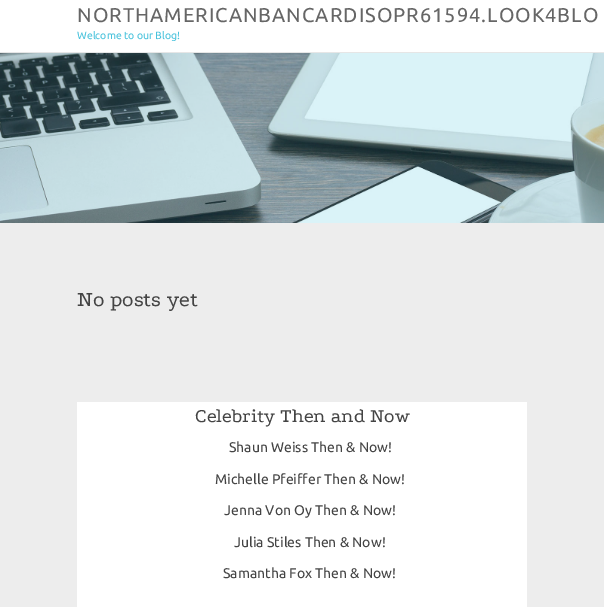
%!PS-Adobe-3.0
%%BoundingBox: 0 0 604 607
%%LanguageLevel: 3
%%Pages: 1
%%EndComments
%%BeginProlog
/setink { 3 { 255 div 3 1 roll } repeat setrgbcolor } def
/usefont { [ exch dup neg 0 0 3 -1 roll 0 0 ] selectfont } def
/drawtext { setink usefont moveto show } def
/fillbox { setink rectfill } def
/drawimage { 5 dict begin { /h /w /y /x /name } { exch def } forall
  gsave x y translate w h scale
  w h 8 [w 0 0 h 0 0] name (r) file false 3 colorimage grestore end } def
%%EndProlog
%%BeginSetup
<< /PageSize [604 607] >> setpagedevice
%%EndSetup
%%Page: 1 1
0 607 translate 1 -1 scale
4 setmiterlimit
0 0 604 607 237 237 237 fillbox
0 0 604 52 255 255 255 fillbox
0 52 604 1 230 230 230 fillbox
/Ubuntu-Regular 20 usefont
102 102 102 setink
77 22 moveto 1 0 (NORTHAMERICANBANCARDISOPR61594.LOOK4BLO) ashow
(Welcome to our Blog!) 77 39 /Ubuntu-Regular 10.5 71 194 220 drawtext
(assets/img1.rgb) 0 53 604 170 drawimage
(No posts yet) 77 306 /Podkova-Regular 22 68 68 68 drawtext
77 402 450 205 255 255 255 fillbox
(Celebrity Then and Now) 195 422 /Podkova-Regular 20 68 68 68 drawtext
(Shaun Weiss Then & Now!) 229 452 /Ubuntu-Regular 14 68 68 68 drawtext
(Michelle Pfeiffer Then & Now!) 215 484 /Ubuntu-Regular 14 68 68 68 drawtext
(Jenna Von Oy Then & Now!) 224 515 /Ubuntu-Regular 14 68 68 68 drawtext
(Julia Stiles Then & Now!) 234 547 /Ubuntu-Regular 14 68 68 68 drawtext
(Samantha Fox Then & Now!) 223 578 /Ubuntu-Regular 14 68 68 68 drawtext
showpage
%%EOF
